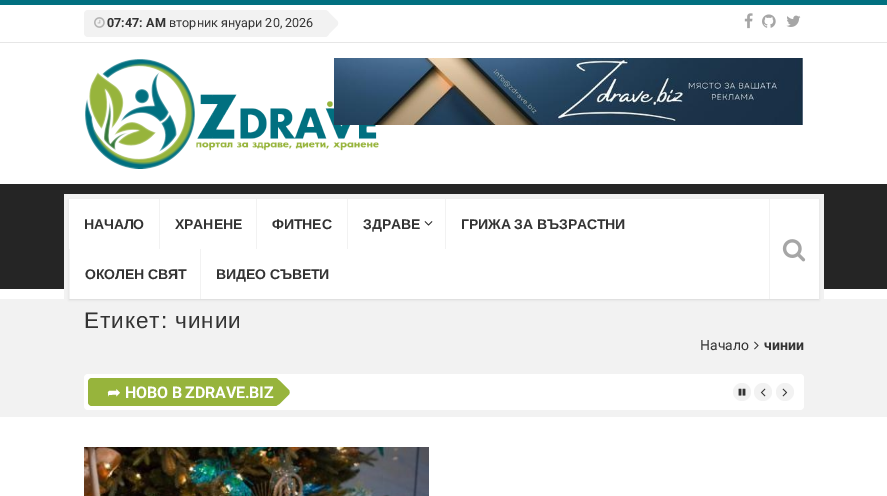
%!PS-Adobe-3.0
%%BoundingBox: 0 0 887 496
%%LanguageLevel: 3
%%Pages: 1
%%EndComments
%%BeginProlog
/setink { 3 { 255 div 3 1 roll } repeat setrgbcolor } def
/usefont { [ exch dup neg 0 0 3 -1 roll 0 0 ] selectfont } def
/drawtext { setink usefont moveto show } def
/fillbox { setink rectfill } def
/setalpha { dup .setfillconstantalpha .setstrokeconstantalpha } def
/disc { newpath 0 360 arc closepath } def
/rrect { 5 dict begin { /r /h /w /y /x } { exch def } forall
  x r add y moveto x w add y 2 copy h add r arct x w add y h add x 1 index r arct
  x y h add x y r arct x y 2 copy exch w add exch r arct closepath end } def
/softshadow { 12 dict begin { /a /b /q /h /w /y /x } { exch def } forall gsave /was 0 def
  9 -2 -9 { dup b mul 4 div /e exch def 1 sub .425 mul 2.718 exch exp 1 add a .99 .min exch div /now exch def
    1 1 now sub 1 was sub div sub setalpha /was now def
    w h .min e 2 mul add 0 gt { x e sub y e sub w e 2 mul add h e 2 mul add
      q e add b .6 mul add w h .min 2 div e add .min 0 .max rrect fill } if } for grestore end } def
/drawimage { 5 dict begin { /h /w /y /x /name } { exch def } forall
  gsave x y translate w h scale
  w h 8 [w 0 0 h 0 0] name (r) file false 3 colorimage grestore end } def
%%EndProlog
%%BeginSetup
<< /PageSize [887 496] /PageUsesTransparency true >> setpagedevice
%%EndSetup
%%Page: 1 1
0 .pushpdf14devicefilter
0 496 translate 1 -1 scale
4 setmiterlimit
0 0 887 496 255 255 255 fillbox
0 0 887 5 1 112 128 fillbox
0 42 887 1 230 230 230 fillbox
242 242 242 setink
84 10 245 27 4 rrect fill
(assets/img1.rgb) 94 17 11 11 drawimage
(07:47: AM) 107 27 /Roboto-Bold 12.6 51 51 51 drawtext
242 242 242 setink
328.5 12 moveto 337 20.5 lineto 338.5 22 338.5 24.5 337 26 curveto 328.5 34.5 lineto 327 36 324.5 36 323 34.5 curveto 314.5 26 lineto 313 24.5 313 22 314.5 20.5 curveto 323 12 lineto 324.5 10.5 327 10.5 328.5 12 curveto closepath fill
(вторник януари 20, 2026) 169 27 /Roboto-Regular 12.6 51 51 51 drawtext
(assets/img2.rgb) 744 13 9 16 drawimage
(assets/img3.rgb) 762 14 14 14 drawimage
(assets/img4.rgb) 786 15 15 12 drawimage
(assets/img5.rgb) 85 59 294 110 drawimage
(assets/img6.rgb) 334 58 469 67 drawimage
0 184 887 105 37 37 37 fillbox
64 194 760 105 242 242 242 fillbox
0 299 887 118 242 242 242 fillbox
108 108 108 setink
69 200 750 100 0 1 0.2 softshadow
69 199 750 100 255 255 255 fillbox
/LiberationSans-Bold 14 usefont
51 51 51 setink
84 229 moveto -0.1 0 (НАЧАЛО) ashow
159 199 1 50 242 242 242 fillbox
51 51 51 setink
175 229 moveto -0.1 0 (ХРАНЕНЕ) ashow
256 199 1 50 242 242 242 fillbox
51 51 51 setink
272 229 moveto -0.1 0 (ФИТНЕС) ashow
347 199 1 50 242 242 242 fillbox
51 51 51 setink
363 229 moveto -0.1 0 (ЗДРАВЕ) ashow
(assets/img7.rgb) 424 221 9 5 drawimage
445 199 1 50 242 242 242 fillbox
51 51 51 setink
461 229 moveto -0.1 0 (ГРИЖА ЗА ВЪЗРАСТНИ) ashow
69 249 1 50 242 242 242 fillbox
51 51 51 setink
85 279 moveto -0.1 0 (ОКОЛЕН СВЯТ) ashow
200 249 1 50 242 242 242 fillbox
51 51 51 setink
216 279 moveto -0.1 0 (ВИДЕО СЪВЕТИ) ashow
769 199 1 100 242 242 242 fillbox
(assets/img8.rgb) 782 239 24 23 drawimage
/LiberationSans-Regular 22.5 usefont
51 51 51 setink
84 328 moveto 1 0 (Етикет: чинии) ashow
(Начало) 700 350 /Roboto-Regular 14 51 51 51 drawtext
(assets/img9.rgb) 754 341 5 9 drawimage
(чинии) 764 350 /Roboto-Bold 14 51 51 51 drawtext
255 255 255 setink
84 374 720 36 4 rrect fill
151 180 60 setink
88 378 191 28 4 rrect fill
/DejaVuSans-Bold 16 usefont
255 255 255 setink
107 398 moveto -0.2 0 (➦) ashow
151 180 60 setink
266 389.5 moveto 274.5 381 lineto 276 379.5 278.5 379.5 280 381 curveto 288.5 389.5 lineto 290 391 290 393.5 288.5 395 curveto 280 403.5 lineto 278.5 405 276 405 274.5 403.5 curveto 266 395 lineto 264.5 393.5 264.5 391 266 389.5 curveto closepath fill
/Roboto-Bold 16 usefont
255 255 255 setink
125 398 moveto -0.2 0 (НОВО В ZDRAVE.BIZ) ashow
242 242 242 setink
742 392 9 disc fill
(assets/img10.rgb) 738 388 8 8 drawimage
763 392 9 disc fill
(assets/img11.rgb) 760 388 6 9 drawimage
785 392 9 disc fill
(assets/img12.rgb) 782 388 6 9 drawimage
(assets/img13.rgb) 84 447 345 49 drawimage
.poppdf14devicefilter showpage
%%EOF
